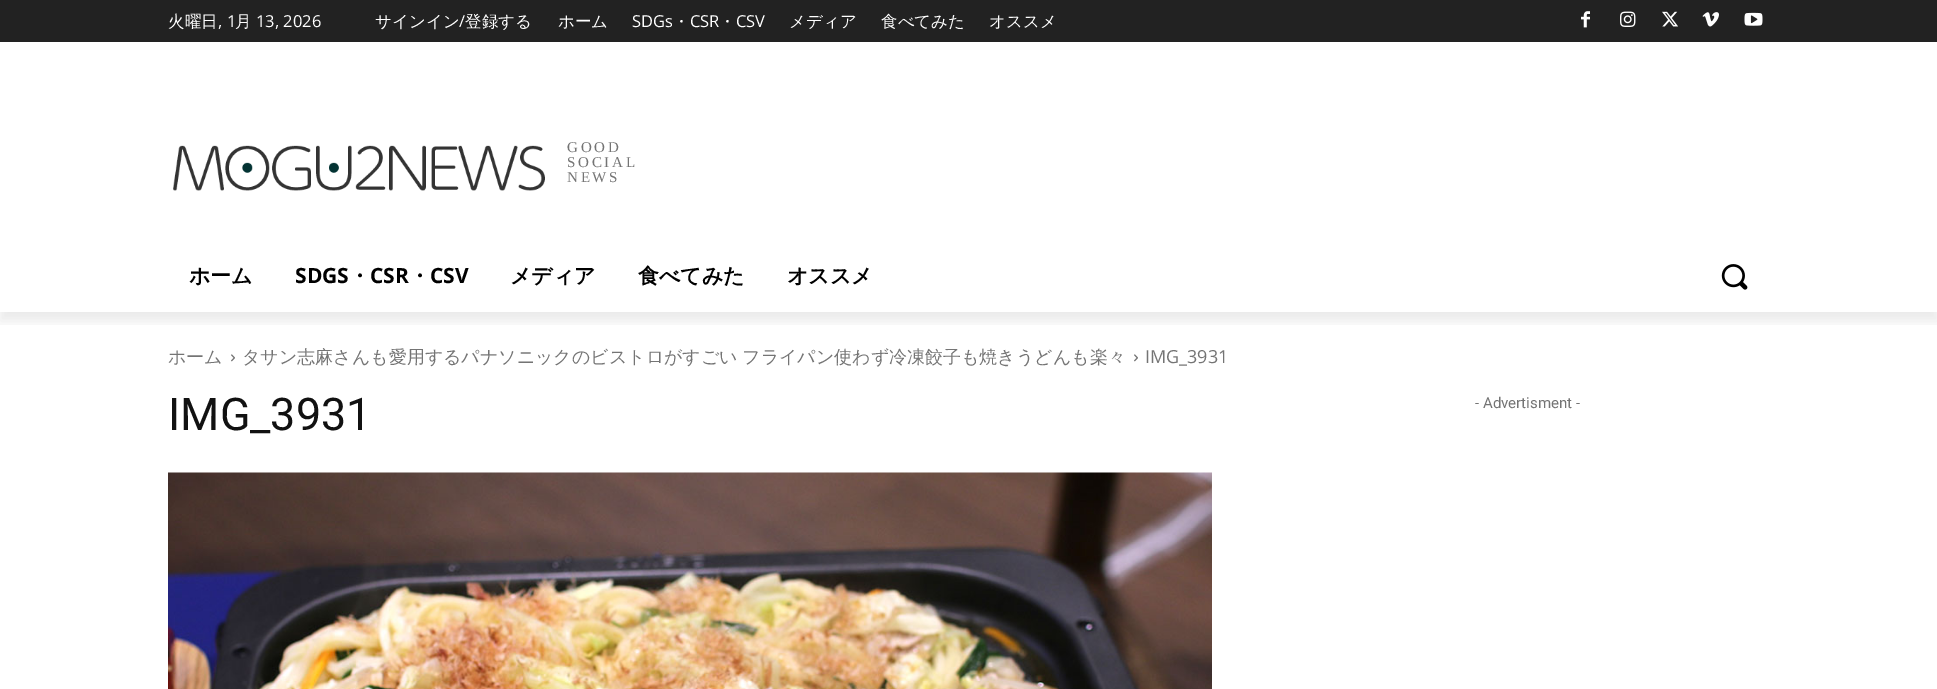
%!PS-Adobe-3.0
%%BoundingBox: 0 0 1937 689
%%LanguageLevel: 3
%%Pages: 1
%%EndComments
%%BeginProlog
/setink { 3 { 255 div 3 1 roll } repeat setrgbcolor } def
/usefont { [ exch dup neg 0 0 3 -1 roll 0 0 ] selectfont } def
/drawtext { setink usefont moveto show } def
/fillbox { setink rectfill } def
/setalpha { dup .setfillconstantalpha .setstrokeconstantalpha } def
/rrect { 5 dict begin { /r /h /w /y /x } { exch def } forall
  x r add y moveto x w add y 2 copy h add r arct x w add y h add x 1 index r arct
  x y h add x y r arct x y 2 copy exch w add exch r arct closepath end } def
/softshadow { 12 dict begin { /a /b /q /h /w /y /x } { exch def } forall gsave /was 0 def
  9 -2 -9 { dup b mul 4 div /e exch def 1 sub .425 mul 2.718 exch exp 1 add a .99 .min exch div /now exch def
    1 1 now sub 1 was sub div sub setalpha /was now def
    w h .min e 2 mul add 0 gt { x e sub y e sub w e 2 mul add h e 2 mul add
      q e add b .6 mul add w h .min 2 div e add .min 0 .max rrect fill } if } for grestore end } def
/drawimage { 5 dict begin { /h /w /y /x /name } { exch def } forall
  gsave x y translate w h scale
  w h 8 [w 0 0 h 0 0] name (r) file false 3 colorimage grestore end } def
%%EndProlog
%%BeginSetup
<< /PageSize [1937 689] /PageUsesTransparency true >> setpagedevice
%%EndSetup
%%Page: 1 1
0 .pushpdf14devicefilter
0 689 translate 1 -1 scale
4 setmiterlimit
0 0 1937 689 255 255 255 fillbox
0 0 1937 42 34 34 34 fillbox
(assets/img1.rgb) 1581 11 9 17 drawimage
(assets/img2.rgb) 1620 11 16 16 drawimage
(assets/img3.rgb) 1662 11 16 16 drawimage
(assets/img4.rgb) 1702 12 17 15 drawimage
(assets/img5.rgb) 1744 12 19 14 drawimage
(assets/img6.rgb) 173 145 372 46 drawimage
gsave
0 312 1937 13 rectclip
0 0 0 setink
0 9 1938 312 0 6 0.08 softshadow
grestore
(火曜日) 168 27 /WenQuanYiZenHei-Medium 16.5 255 255 255 drawtext
(, 1) 218 27 /OpenSans-Regular 16.5 255 255 255 drawtext
(月) 235 27 /WenQuanYiZenHei-Medium 16.5 255 255 255 drawtext
(13, 2026) 256 27 /OpenSans-Regular 16.5 255 255 255 drawtext
(サインイン) 375 27 /WenQuanYiZenHei-Medium 16.5 255 255 255 drawtext
(/) 459 27 /OpenSans-Regular 16.5 255 255 255 drawtext
(登録する) 465 27 /WenQuanYiZenHei-Medium 16.5 255 255 255 drawtext
(ホーム) 558 27 /WenQuanYiZenHei-Medium 16.5 255 255 255 drawtext
(SDGs) 632 27 /OpenSans-Regular 16.5 255 255 255 drawtext
(・) 673 27 /WenQuanYiZenHei-Medium 16.5 255 255 255 drawtext
(CSR) 690 27 /OpenSans-Regular 16.5 255 255 255 drawtext
(・) 719 27 /WenQuanYiZenHei-Medium 16.5 255 255 255 drawtext
(CSV) 736 27 /OpenSans-Regular 16.5 255 255 255 drawtext
(メディア) 789 27 /WenQuanYiZenHei-Medium 16.5 255 255 255 drawtext
(食べてみた) 881 27 /WenQuanYiZenHei-Medium 16.5 255 255 255 drawtext
(オススメ) 989 27 /WenQuanYiZenHei-Medium 16.5 255 255 255 drawtext
/LiberationSerif-Regular 15 usefont
116 116 116 setink
567 152 moveto 2.75 0 (GOOD) ashow
567 167 moveto 2.75 0 (SOCIAL) ashow
567 182 moveto 2.75 0 (NEWS) ashow
(ホーム) 189 283 /WenQuanYiZenHei-Bold 21 0 0 0 drawtext
(SDGS) 295 283 /OpenSans-Bold 21 0 0 0 drawtext
(・) 349 283 /WenQuanYiZenHei-Bold 21 0 0 0 drawtext
(CSR) 370 283 /OpenSans-Bold 21 0 0 0 drawtext
(・) 409 283 /WenQuanYiZenHei-Bold 21 0 0 0 drawtext
(CSV) 430 283 /OpenSans-Bold 21 0 0 0 drawtext
(メディア) 510 283 /WenQuanYiZenHei-Bold 21 0 0 0 drawtext
(食べてみた) 638 283 /WenQuanYiZenHei-Bold 21 0 0 0 drawtext
(オススメ) 787 283 /WenQuanYiZenHei-Bold 21 0 0 0 drawtext
(assets/img7.rgb) 1721 264 27 26 drawimage
(ホーム) 168 363 /WenQuanYiZenHei-Medium 18 116 116 116 drawtext
(assets/img8.rgb) 231 354 4 8 drawimage
242 363 moveto -1 0 32 (タサン志麻さんも愛用するパナソニックのビストロがすごい フライパン使わず冷凍餃子も焼きうどんも楽々) widthshow
(assets/img8.rgb) 1134 354 4 8 drawimage
(IMG_3931) 1145 363 /OpenSans-Regular 18 116 116 116 drawtext
(IMG_3931) 168 430 /Roboto-Regular 45 17 17 17 drawtext
(assets/img9.rgb) 168 472 1044 217 drawimage
(- Advertisment -) 1475 408 /Roboto-Regular 15 116 116 116 drawtext
.poppdf14devicefilter showpage
%%EOF
